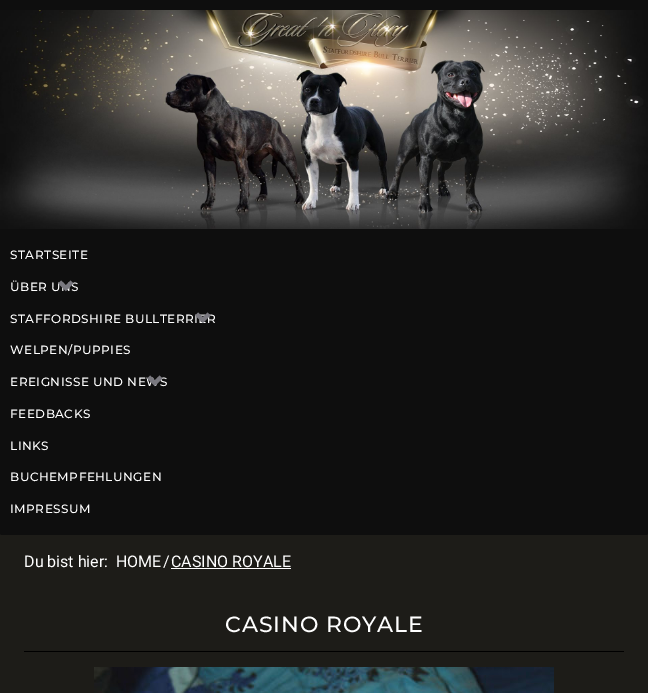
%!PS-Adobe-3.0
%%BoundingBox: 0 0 648 693
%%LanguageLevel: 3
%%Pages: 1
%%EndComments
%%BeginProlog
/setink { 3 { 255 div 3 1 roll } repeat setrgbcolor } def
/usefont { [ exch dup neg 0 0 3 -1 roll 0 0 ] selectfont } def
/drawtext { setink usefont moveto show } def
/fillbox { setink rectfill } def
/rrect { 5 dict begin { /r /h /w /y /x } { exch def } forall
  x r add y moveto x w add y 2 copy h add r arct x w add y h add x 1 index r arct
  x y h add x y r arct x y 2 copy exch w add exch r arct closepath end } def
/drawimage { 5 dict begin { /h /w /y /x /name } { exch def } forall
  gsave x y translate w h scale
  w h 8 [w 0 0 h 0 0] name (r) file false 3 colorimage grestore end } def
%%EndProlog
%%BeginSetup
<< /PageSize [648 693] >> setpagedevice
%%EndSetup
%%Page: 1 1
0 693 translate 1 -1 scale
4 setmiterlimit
0 0 648 693 29 28 24 fillbox
0 0 648 231 14 14 14 fillbox
(assets/img1.rgb) 0 10 648 219 drawimage
0 229 648 306 2 rrect fill
/Montserrat-Thin 12 usefont
255 255 255 setink
10 259 moveto 0.5 0 (STARTSEITE) ashow
10 291 moveto 0.5 0 (ÜBER UNS) ashow
(assets/img2.rgb) 58 280 16 12 drawimage
10 323 moveto 0.5 0 (STAFFORDSHIRE BULLTERRIER) ashow
(assets/img3.rgb) 195 312 16 12 drawimage
10 354 moveto 0.5 0 (WELPEN/PUPPIES) ashow
10 386 moveto 0.5 0 (EREIGNISSE UND NEWS) ashow
(assets/img4.rgb) 147 375 16 12 drawimage
10 418 moveto 0.5 0 (FEEDBACKS) ashow
10 450 moveto 0.5 0 (LINKS) ashow
10 481 moveto 0.5 0 (BUCHEMPFEHLUNGEN) ashow
10 513 moveto 0.5 0 (IMPRESSUM) ashow
(Du bist hier:) 24 567 /Roboto-Regular 16 255 255 255 drawtext
(HOME) 116 567 /Roboto-Regular 16 255 255 255 drawtext
(/) 163 567 /Roboto-Regular 16 255 255 255 drawtext
(CASINO ROYALE) 171 567 /Roboto-Regular 16 255 255 255 drawtext
171 568 120 1 255 255 255 fillbox
/Montserrat-Thin 22 usefont
225 632 moveto 0.9 0 (CASINO ROYALE) ashow
24 651 600 1 0 0 0 fillbox
(assets/img5.rgb) 94 667 460 26 drawimage
showpage
%%EOF
